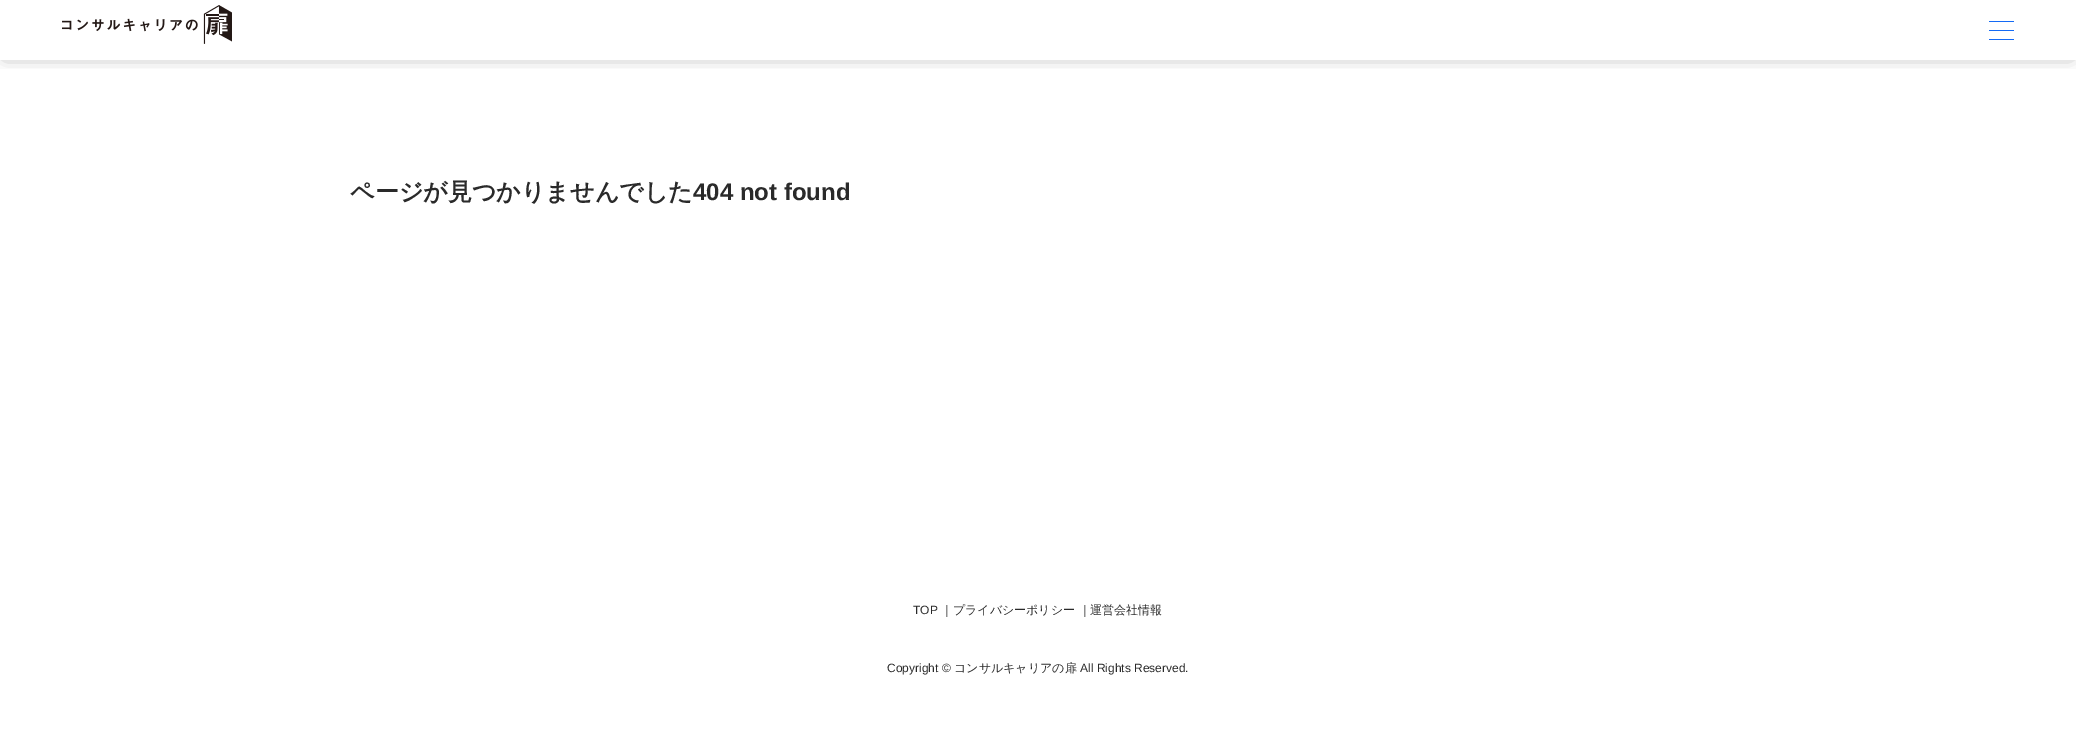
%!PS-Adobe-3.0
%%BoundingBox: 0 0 2076 732
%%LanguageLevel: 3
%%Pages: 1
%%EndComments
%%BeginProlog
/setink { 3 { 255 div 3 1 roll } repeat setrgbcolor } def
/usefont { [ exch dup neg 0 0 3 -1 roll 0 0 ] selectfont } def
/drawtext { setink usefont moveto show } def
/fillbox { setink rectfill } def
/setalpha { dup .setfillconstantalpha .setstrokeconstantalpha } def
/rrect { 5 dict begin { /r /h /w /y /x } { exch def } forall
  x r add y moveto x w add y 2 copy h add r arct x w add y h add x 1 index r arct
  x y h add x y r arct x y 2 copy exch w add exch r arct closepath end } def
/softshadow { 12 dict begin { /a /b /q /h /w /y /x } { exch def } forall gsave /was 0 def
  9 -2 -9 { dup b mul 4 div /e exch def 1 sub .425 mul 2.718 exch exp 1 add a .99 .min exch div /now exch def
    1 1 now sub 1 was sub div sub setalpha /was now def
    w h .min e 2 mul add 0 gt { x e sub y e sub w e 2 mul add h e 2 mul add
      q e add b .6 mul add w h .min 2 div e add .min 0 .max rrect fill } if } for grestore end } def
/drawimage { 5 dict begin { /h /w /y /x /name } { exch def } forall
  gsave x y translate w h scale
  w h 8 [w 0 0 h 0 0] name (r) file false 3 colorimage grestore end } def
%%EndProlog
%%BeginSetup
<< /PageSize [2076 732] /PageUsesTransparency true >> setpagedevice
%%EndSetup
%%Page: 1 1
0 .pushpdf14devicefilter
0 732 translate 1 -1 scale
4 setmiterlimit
0 0 2076 732 255 255 255 fillbox
gsave
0 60 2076 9 rectclip
0 0 0 setink
6 6 2064 48 0 8 0.6 softshadow
grestore
(assets/img1.rgb) 62 5 170 39 drawimage
20 106 245 setink
1989 21 25 1 0.5 rrect fill
1989 30 25 1 0.5 rrect fill
1989 39 25 1 0.5 rrect fill
(ページが見つかりませんでした) 350 200 /WenQuanYiZenHei-Bold 24 42 42 42 drawtext
(404 not found) 693 200 /LiberationSans-Bold 24 42 42 42 drawtext
(TOP) 913 614 /LiberationSans-Regular 12 42 42 42 drawtext
(｜プライバシーポリシー ｜運営会社情報) 941 614 /WenQuanYiZenHei-Medium 12 42 42 42 drawtext
(Copyright ©) 887 672 /LiberationSans-Regular 12 42 42 42 drawtext
(コンサルキャリアの扉) 954 672 /WenQuanYiZenHei-Medium 12 42 42 42 drawtext
(All Rights Reserved.) 1080 672 /LiberationSans-Regular 12 42 42 42 drawtext
.poppdf14devicefilter showpage
%%EOF
